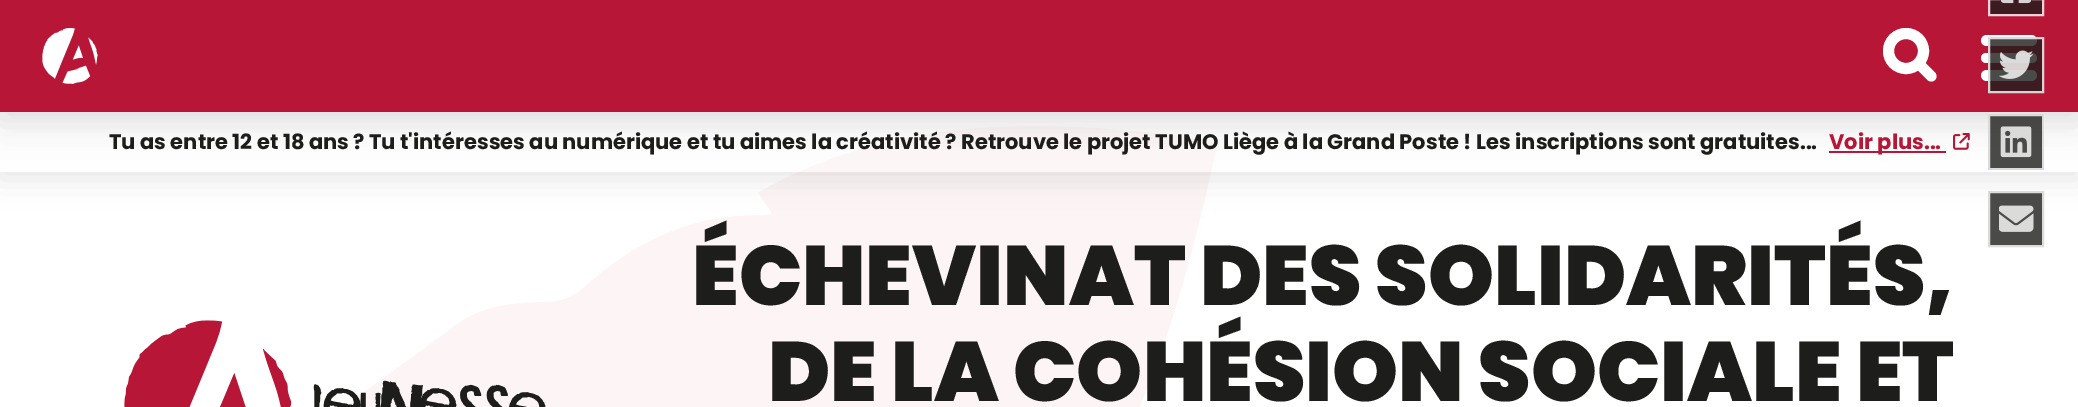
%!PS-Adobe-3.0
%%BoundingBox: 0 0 2078 407
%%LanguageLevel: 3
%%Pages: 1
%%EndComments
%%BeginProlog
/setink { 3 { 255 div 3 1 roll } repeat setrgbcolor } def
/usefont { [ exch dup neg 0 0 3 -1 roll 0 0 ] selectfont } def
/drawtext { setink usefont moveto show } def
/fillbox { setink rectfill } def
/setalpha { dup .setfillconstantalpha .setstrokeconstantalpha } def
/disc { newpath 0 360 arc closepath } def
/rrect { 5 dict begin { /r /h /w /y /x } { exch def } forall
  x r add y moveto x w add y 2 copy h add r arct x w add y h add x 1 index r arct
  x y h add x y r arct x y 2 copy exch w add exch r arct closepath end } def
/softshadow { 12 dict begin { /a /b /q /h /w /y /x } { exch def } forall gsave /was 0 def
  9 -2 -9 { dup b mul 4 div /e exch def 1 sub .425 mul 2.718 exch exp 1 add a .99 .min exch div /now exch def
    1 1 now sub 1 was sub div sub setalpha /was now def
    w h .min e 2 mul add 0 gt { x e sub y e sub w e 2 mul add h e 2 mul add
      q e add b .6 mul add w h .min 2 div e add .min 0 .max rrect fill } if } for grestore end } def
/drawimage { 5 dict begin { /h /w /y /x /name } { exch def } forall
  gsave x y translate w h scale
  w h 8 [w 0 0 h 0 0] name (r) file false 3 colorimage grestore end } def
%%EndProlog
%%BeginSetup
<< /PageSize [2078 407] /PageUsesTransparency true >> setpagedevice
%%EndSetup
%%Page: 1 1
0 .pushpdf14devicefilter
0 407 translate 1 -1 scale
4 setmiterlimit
0 0 2078 407 255 255 255 fillbox
(assets/img6.rgb) 348 126 870 281 drawimage
gsave
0 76 moveto 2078 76 lineto 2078 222 lineto 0 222 lineto closepath 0 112 moveto 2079 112 lineto 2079 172 lineto 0 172 lineto closepath eoclip newpath
17 17 26 setink
0 119 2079 60 0 14 0.1 softshadow
grestore
0.28 setalpha
799 126 419 46 255 255 255 fillbox
1 setalpha
1829 151 117 2 184 22 55 fillbox
(assets/img7.rgb) 1953 133 17 17 drawimage
17 17 26 setink
0 14 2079 112 0 28 0.05 softshadow
0 7 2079 112 0 14 0.1 softshadow
0 0 2078 112 184 22 55 fillbox
60 28 33 setink
1989 -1 moveto 2043 -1 lineto 2043 15 lineto 1989 15 lineto closepath gsave fill grestore
241 208 215 setink
2 setlinewidth
stroke
(assets/img1.rgb) 2000 0 32 4 drawimage
255 255 255 setink
1981 35 56 11 5.5 rrect fill
1981 53 56 10 5 rrect fill
1981 70 56 11 5.5 rrect fill
0.8 setalpha
1988 37 56 56 29 29 27 fillbox
255 255 255 setink
1989 38 54 54 rectstroke
1 setalpha
(assets/img2.rgb) 1999 50 35 29 drawimage
0.8 setalpha
1988 114 56 56 29 29 27 fillbox
255 255 255 setink
1989 115 54 54 rectstroke
1 setalpha
(assets/img3.rgb) 2000 126 32 32 drawimage
0.8 setalpha
29 29 27 setink
1989 192 moveto 2043 192 lineto 2043 246 lineto 1989 246 lineto closepath fill
1 setalpha
219 219 218 setink
1989 192 moveto 2043 192 lineto 2043 246 lineto 1989 246 lineto closepath stroke
(assets/img4.rgb) 1999 205 35 27 drawimage
(assets/img5.rgb) 42 28 56 56 drawimage
255 255 255 setink
11 setlinewidth
1906 51 17.5 disc stroke
1922.5 60 moveto 1935 72.5 lineto 1937 74.5 1937 78 1935 80 curveto 1933 82 1929.5 82 1927.5 80 curveto 1915 67.5 lineto 1913 65.5 1913 62 1915 60 curveto 1917 58 1920.5 58 1922.5 60 curveto closepath fill
(Tu as entre 12 et 18 ans ? Tu t'intéresses au numérique et tu aimes la créativité ? Retrouve le projet TUMO Liège à la Grand Poste ! Les inscriptions sont gratuites...) 109 149 /Poppins-Bold 21 29 29 27 drawtext
(Voir plus...) 1829 149 /Poppins-Bold 21 184 22 55 drawtext
(assets/img8.rgb) 124 320 422 87 drawimage
(ÉCHEVINAT DES SOLIDARITÉS,) 692 305 /Poppins-Black 84 29 29 27 drawtext
(DE LA COHÉSION SOCIALE ET) 768 401 /Poppins-Black 84 29 29 27 drawtext
.poppdf14devicefilter showpage
%%EOF
